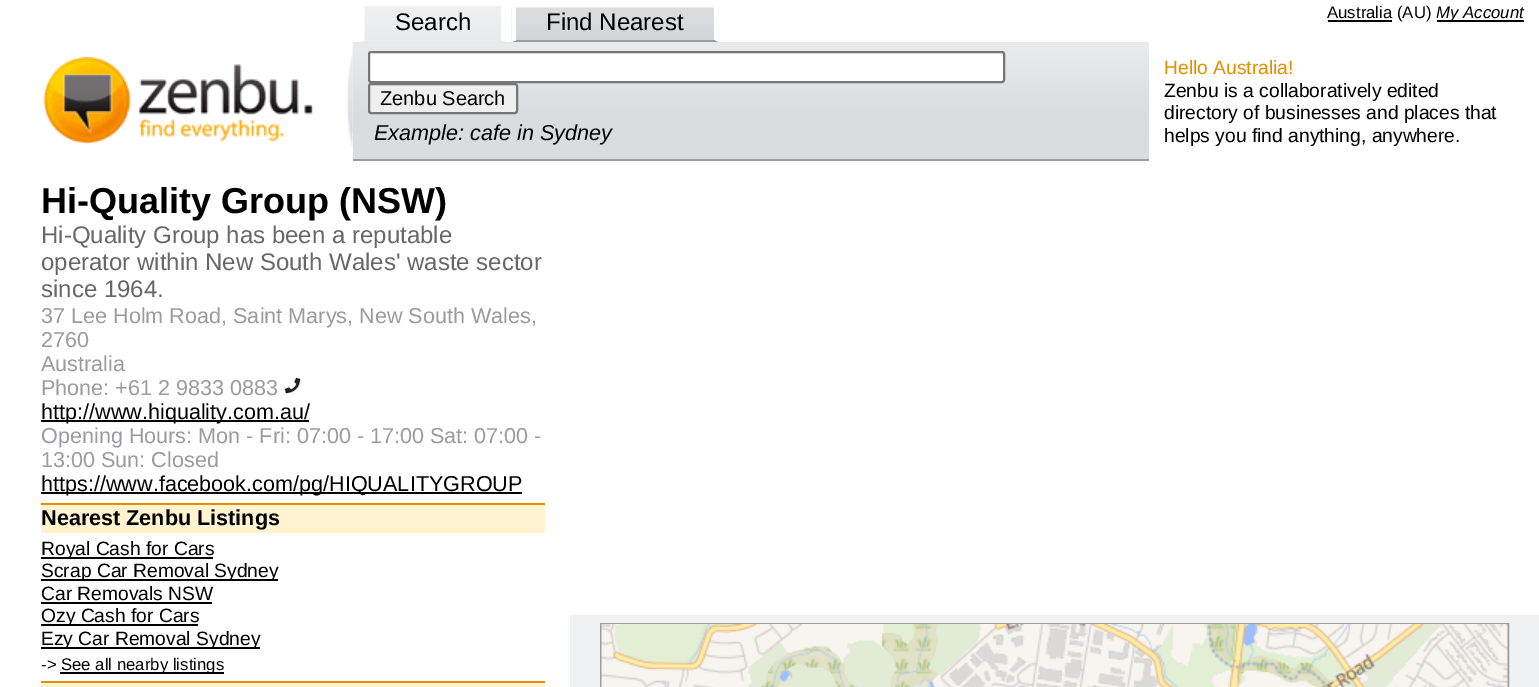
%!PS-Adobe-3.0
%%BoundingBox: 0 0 1539 687
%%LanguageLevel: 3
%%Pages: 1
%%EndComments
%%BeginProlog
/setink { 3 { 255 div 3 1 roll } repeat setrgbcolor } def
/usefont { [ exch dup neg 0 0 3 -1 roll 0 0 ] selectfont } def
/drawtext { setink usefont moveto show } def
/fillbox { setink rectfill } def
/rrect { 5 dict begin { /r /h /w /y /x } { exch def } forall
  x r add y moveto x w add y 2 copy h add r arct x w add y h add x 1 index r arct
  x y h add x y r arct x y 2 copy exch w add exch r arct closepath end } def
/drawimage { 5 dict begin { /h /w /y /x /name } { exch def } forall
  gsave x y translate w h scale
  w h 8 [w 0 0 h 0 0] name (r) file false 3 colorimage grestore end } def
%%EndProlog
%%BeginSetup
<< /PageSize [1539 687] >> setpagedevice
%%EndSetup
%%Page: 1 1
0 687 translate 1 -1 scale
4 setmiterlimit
0 0 1539 687 255 255 255 fillbox
1328 20 64 2 0 0 0 fillbox
(Australia \(AU\)) 1327 18 /LiberationSans-Regular 16.75 0 0 0 drawtext
1437 20 87 2 0 0 0 fillbox
(My Account) 1436 18 /LiberationSans-Italic 16.75 0 0 0 drawtext
(assets/img1.rgb) 360 6 146 36 drawimage
(assets/img2.rgb) 511 7 208 35 drawimage
(Search) 395 30 /LiberationSans-Regular 24 0 0 0 drawtext
255 255 255 setink
505.5 3 moveto 505.5 42 lineto 501 40.5 lineto 501 3 lineto closepath fill
234 235 236 setink
506 42 moveto 360 42 lineto 364 40 lineto 501 40 lineto closepath fill
255 255 255 setink
360 42 moveto 360 3 lineto 364.5 3 lineto 364.5 40.5 lineto closepath fill
(Find Nearest) 546 30 /LiberationSans-Regular 24 0 0 0 drawtext
255 255 255 setink
718.5 3 moveto 718.5 42 lineto 714 40.5 lineto 714 3 lineto closepath fill
155 156 159 setink
718 42 moveto 512 42 lineto 516 40 lineto 714 40 lineto closepath fill
255 255 255 setink
511.5 42 moveto 511.5 3 lineto 516 3 lineto 516 40.5 lineto closepath fill
(assets/img3.rgb) 346 55 7 92 drawimage
(assets/img4.rgb) 43 57 270 88 drawimage
353 42 796 117 219 220 223 fillbox
(assets/img5.rgb) 352 42 797 92 drawimage
353 159 796 2 155 156 159 fillbox
255 255 255 setink
369 52 635 30 2 rrect gsave fill grestore
118 118 118 setink
2 setlinewidth
stroke
239 239 239 setink
369 84 148 29 2 rrect gsave fill grestore
118 118 118 setink
stroke
(Zenbu Search) 380 105 /LiberationSans-Regular 20 0 0 0 drawtext
(Example: cafe in Sydney) 374 140 /LiberationSans-Italic 21.6 0 0 0 drawtext
(Hello Australia!) 1164 74 /LiberationSans-Regular 19.25 231 141 0 drawtext
(Zenbu is a collaboratively edited) 1164 97 /LiberationSans-Regular 19.25 0 0 0 drawtext
(directory of businesses and places that) 1164 119 /LiberationSans-Regular 19.25 0 0 0 drawtext
(helps you find anything, anywhere.) 1164 142 /LiberationSans-Regular 19.25 0 0 0 drawtext
(Hi-Quality Group \(NSW\)) 41 213 /LiberationSans-Bold 36 0 0 0 drawtext
(Hi-Quality Group has been a reputable) 41 243 /LiberationSans-Regular 24 102 103 104 drawtext
(operator within New South Wales' waste sector) 41 270 /LiberationSans-Regular 24 102 103 104 drawtext
(since 1964.) 41 297 /LiberationSans-Regular 24 102 103 104 drawtext
(37 Lee Holm Road, Saint Marys, New South Wales,) 41 323 /LiberationSans-Regular 21.6 153 154 163 drawtext
(2760) 41 347 /LiberationSans-Regular 21.6 153 154 163 drawtext
(Australia) 41 371 /LiberationSans-Regular 21.6 153 154 163 drawtext
(Phone: +61 2 9833 0883) 41 395 /LiberationSans-Regular 21.6 153 154 163 drawtext
(assets/img6.rgb) 284 377 17 17 drawimage
41 420 268 2 0 0 0 fillbox
(http://www.hiquality.com.au/) 41 419 /LiberationSans-Regular 21.6 0 0 0 drawtext
(Opening Hours: Mon - Fri: 07:00 - 17:00 Sat: 07:00 -) 41 443 /LiberationSans-Regular 21.6 153 154 163 drawtext
(13:00 Sun: Closed) 41 467 /LiberationSans-Regular 21.6 153 154 163 drawtext
41 492 481 2 0 0 0 fillbox
(https://www.facebook.com/pg/HIQUALITYGROUP) 41 491 /LiberationSans-Regular 21.6 0 0 0 drawtext
41 505 504 28 255 244 207 fillbox
41 503 504 2 231 141 0 fillbox
(Nearest Zenbu Listings) 41 525 /LiberationSans-Bold 21.6 0 0 0 drawtext
41 557 172 2 0 0 0 fillbox
(Royal Cash for Cars) 41 555 /LiberationSans-Regular 19.25 0 0 0 drawtext
41 579 237 2 0 0 0 fillbox
(Scrap Car Removal Sydney) 41 577 /LiberationSans-Regular 19.25 0 0 0 drawtext
(Car Removals NSW) 41 600 /LiberationSans-Regular 19.25 0 0 0 drawtext
41 602 171 2 0 0 0 fillbox
41 624 157 2 0 0 0 fillbox
(Ozy Cash for Cars) 41 622 /LiberationSans-Regular 19.25 0 0 0 drawtext
41 647 219 2 0 0 0 fillbox
(Ezy Car Removal Sydney) 41 645 /LiberationSans-Regular 19.25 0 0 0 drawtext
(->) 41 670 /LiberationSans-Regular 16.75 0 0 0 drawtext
60 672 164 2 0 0 0 fillbox
(See all nearby listings) 61 670 /LiberationSans-Regular 16.75 0 0 0 drawtext
41 683 504 4 255 244 207 fillbox
41 681 504 2 231 141 0 fillbox
570 615 969 72 240 241 243 fillbox
155 156 159 setink
601 624 907 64 rectstroke
(assets/img7.rgb) 601 624 907 63 drawimage
showpage
%%EOF
